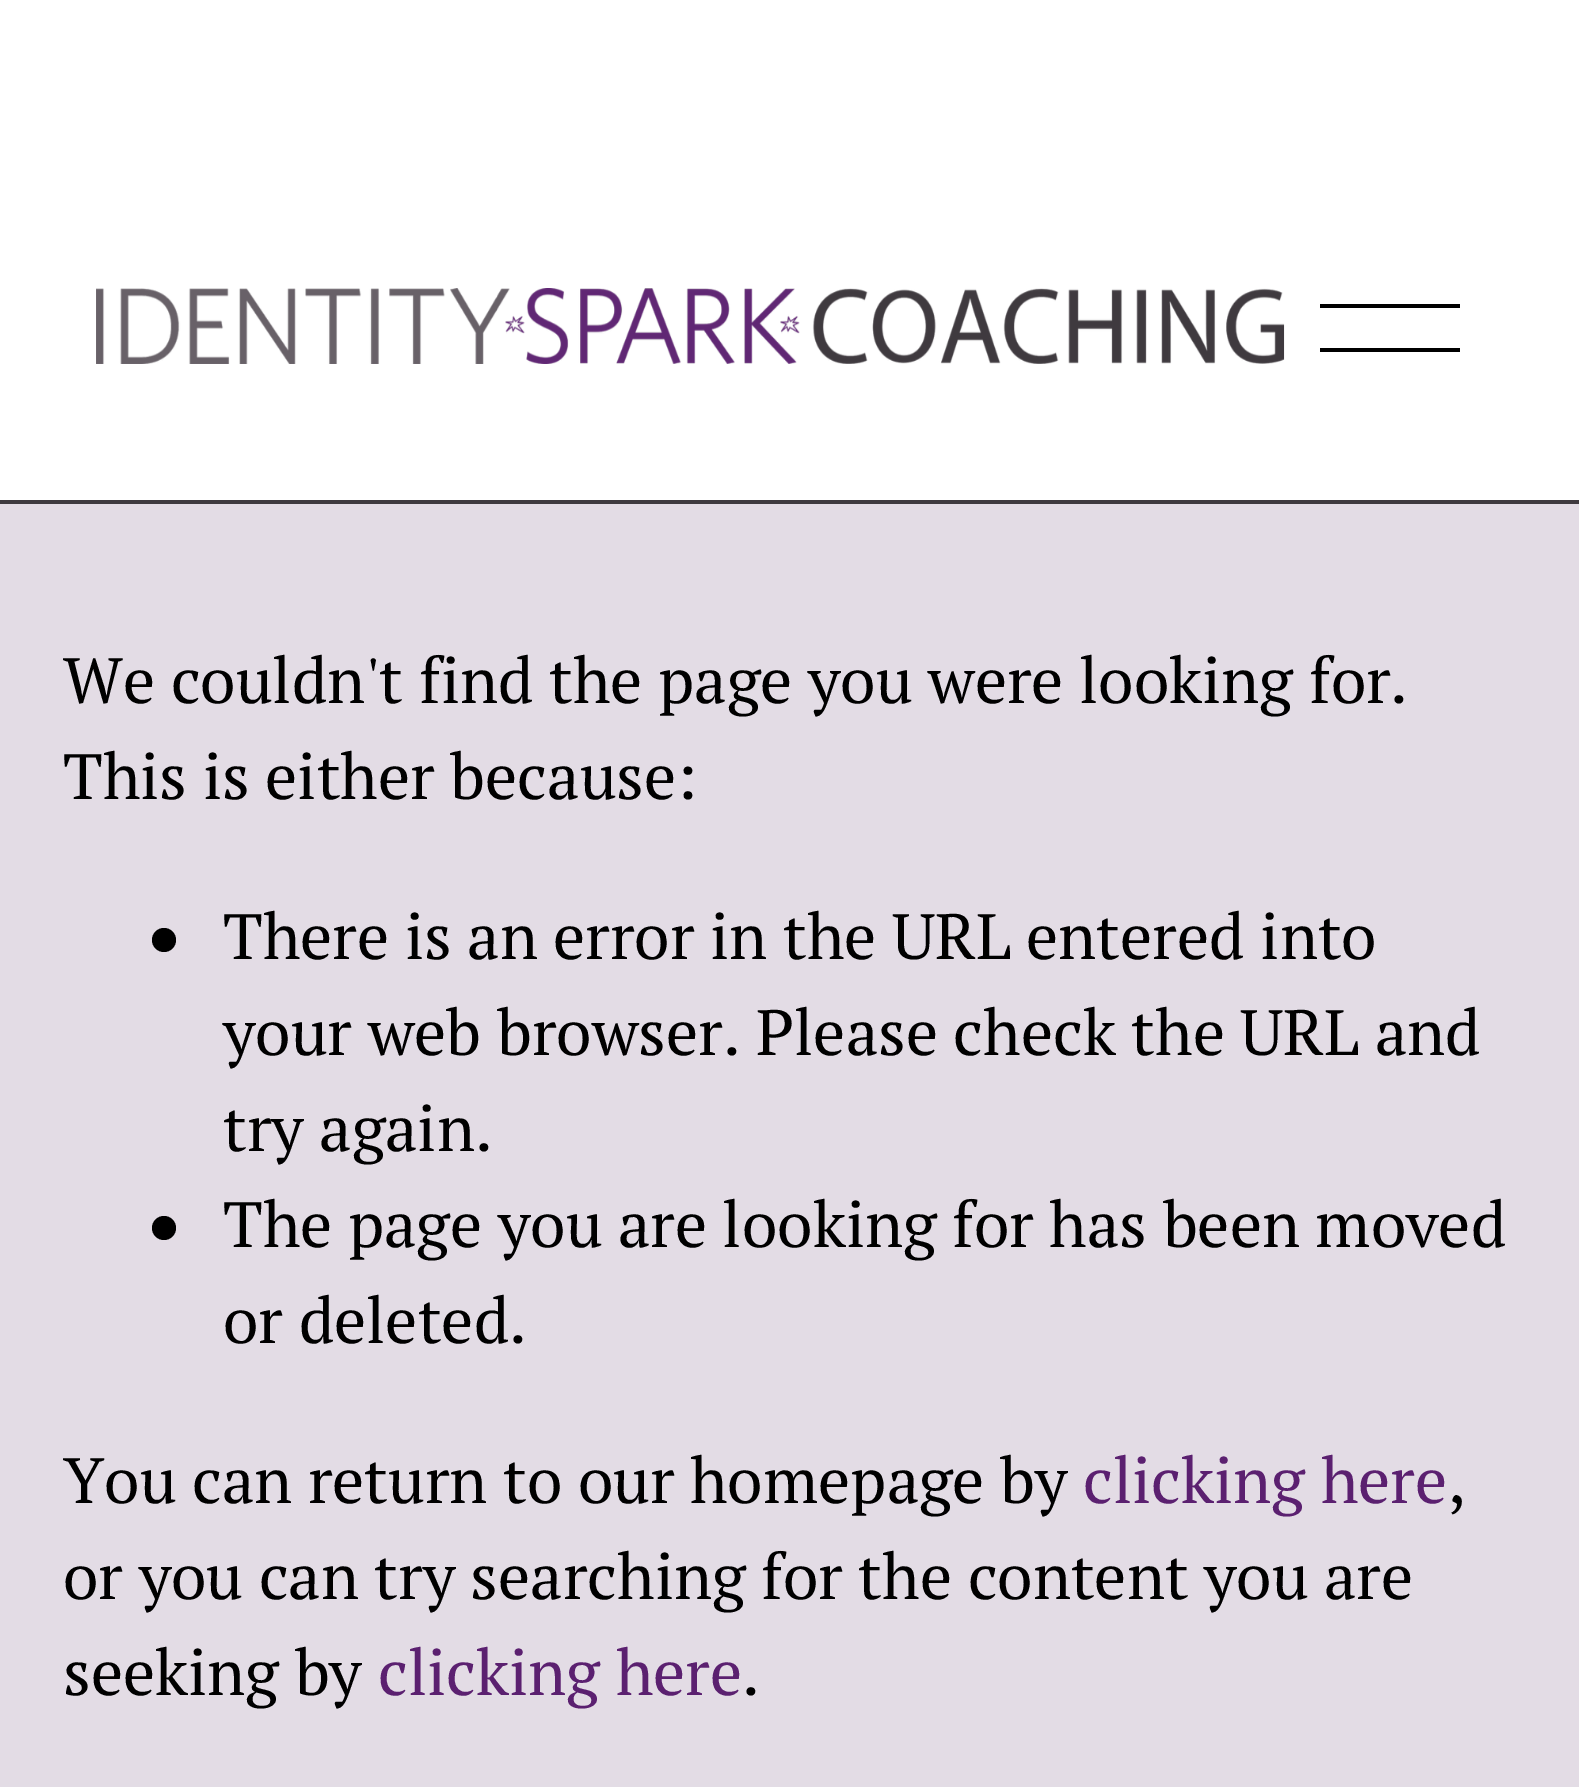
%!PS-Adobe-3.0
%%BoundingBox: 0 0 1579 1787
%%LanguageLevel: 3
%%Pages: 1
%%EndComments
%%BeginProlog
/setink { 3 { 255 div 3 1 roll } repeat setrgbcolor } def
/usefont { [ exch dup neg 0 0 3 -1 roll 0 0 ] selectfont } def
/drawtext { setink usefont moveto show } def
/fillbox { setink rectfill } def
/disc { newpath 0 360 arc closepath } def
/drawimage { 5 dict begin { /h /w /y /x /name } { exch def } forall
  gsave x y translate w h scale
  w h 8 [w 0 0 h 0 0] name (r) file false 3 colorimage grestore end } def
%%EndProlog
%%BeginSetup
<< /PageSize [1579 1787] >> setpagedevice
%%EndSetup
%%Page: 1 1
0 1787 translate 1 -1 scale
4 setmiterlimit
0 0 1579 1787 227 220 229 fillbox
0 0 1579 500 255 255 255 fillbox
(assets/img1.rgb) 96 288 1189 76 drawimage
1320 304 140 4 0 0 0 fillbox
1320 348 140 4 0 0 0 fillbox
0 500 1579 4 63 58 63 fillbox
(We couldn't find the page you were looking for.) 63 703 /PTSerif-Regular 64 0 0 0 drawtext
(This is either because:) 63 799 /PTSerif-Regular 64 0 0 0 drawtext
164 940 12 disc fill
(There is an error in the URL entered into) 223 959 /PTSerif-Regular 64 0 0 0 drawtext
(your web browser. Please check the URL and) 223 1055 /PTSerif-Regular 64 0 0 0 drawtext
(try again.) 223 1151 /PTSerif-Regular 64 0 0 0 drawtext
164 1228 12 disc fill
(The page you are looking for has been moved) 223 1247 /PTSerif-Regular 64 0 0 0 drawtext
(or deleted.) 223 1343 /PTSerif-Regular 64 0 0 0 drawtext
(You can return to our homepage by) 63 1503 /PTSerif-Regular 64 0 0 0 drawtext
(clicking here) 1083 1503 /PTSerif-Regular 64 91 32 112 drawtext
(,) 1448 1503 /PTSerif-Regular 64 0 0 0 drawtext
(or you can try searching for the content you are) 63 1599 /PTSerif-Regular 64 0 0 0 drawtext
(seeking by) 63 1695 /PTSerif-Regular 64 0 0 0 drawtext
(clicking here) 378 1695 /PTSerif-Regular 64 91 32 112 drawtext
(.) 742 1695 /PTSerif-Regular 64 0 0 0 drawtext
showpage
%%EOF
